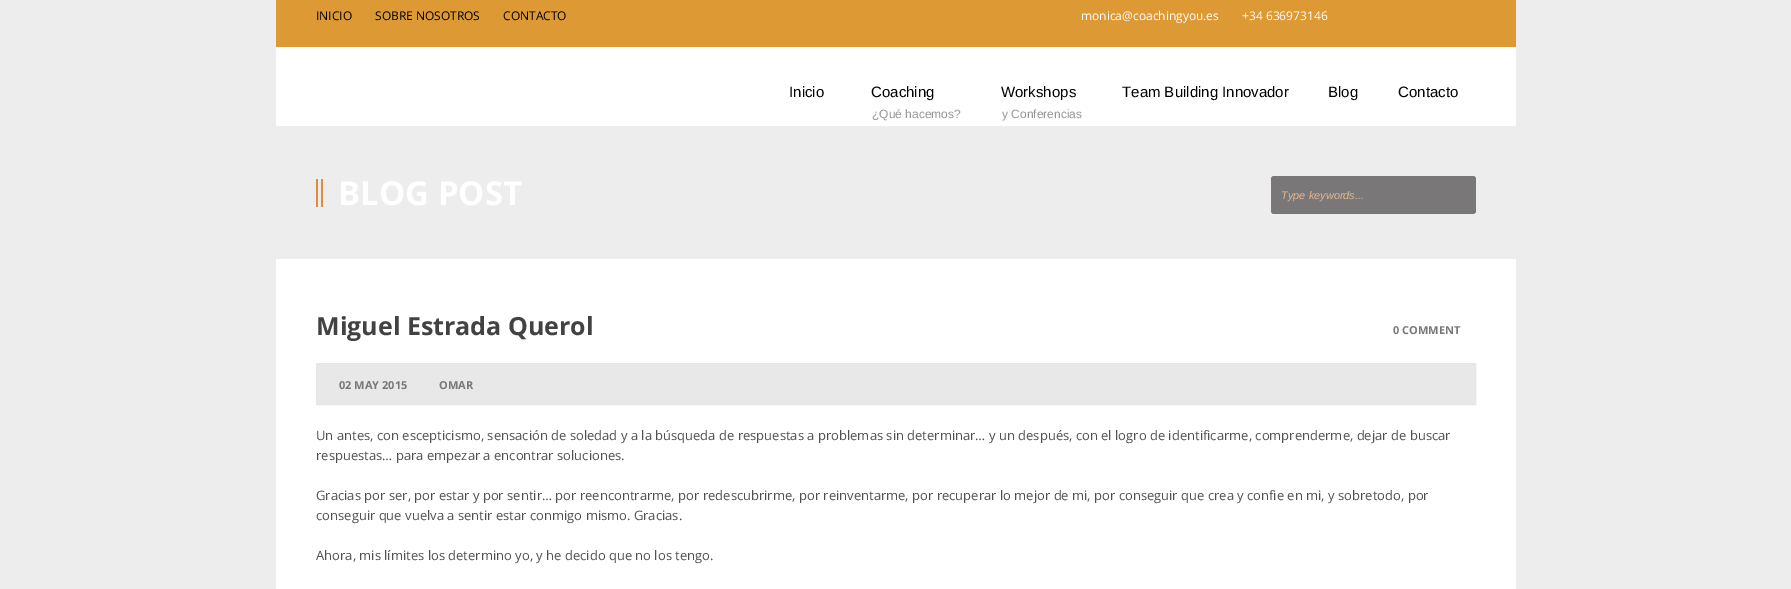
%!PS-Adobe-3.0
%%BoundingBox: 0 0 1791 589
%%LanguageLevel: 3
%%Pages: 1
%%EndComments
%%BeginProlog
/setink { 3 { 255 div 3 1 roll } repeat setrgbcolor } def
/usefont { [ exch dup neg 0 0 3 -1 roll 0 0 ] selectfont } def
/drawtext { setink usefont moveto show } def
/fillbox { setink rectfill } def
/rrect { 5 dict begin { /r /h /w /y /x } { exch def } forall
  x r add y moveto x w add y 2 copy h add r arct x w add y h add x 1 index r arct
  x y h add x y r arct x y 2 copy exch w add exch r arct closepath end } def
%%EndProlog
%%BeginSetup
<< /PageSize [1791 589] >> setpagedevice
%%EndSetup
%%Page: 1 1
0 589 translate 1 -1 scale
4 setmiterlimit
0 0 1791 589 237 237 237 fillbox
276 0 1240 47 221 153 51 fillbox
(INICIO) 316 20 /OpenSans-Regular 12 0 0 0 drawtext
(SOBRE NOSOTROS) 375 20 /OpenSans-Regular 12 0 0 0 drawtext
(CONTACTO) 503 20 /OpenSans-Regular 12 0 0 0 drawtext
(monica@coachingyou.es) 1081 20 /OpenSans-Regular 12 255 255 255 drawtext
(+34 636973146) 1242 20 /OpenSans-Regular 12 255 255 255 drawtext
276 47 1240 79 255 255 255 fillbox
(Inicio) 789 97 /LiberationSans-Regular 15 0 0 0 drawtext
(Coaching) 871 97 /LiberationSans-Regular 15 0 0 0 drawtext
(¿Qué hacemos?) 872 118 /LiberationSans-Regular 12 150 150 150 drawtext
(Workshops) 1001 97 /LiberationSans-Regular 15 0 0 0 drawtext
(y Conferencias) 1002 118 /LiberationSans-Regular 12 150 150 150 drawtext
(Team Building Innovador) 1122 97 /LiberationSans-Regular 15 0 0 0 drawtext
(Blog) 1328 97 /LiberationSans-Regular 15 0 0 0 drawtext
(Contacto) 1398 97 /LiberationSans-Regular 15 0 0 0 drawtext
316 179 2 28 220 139 63 fillbox
321 179 2 28 220 139 63 fillbox
(BLOG POST) 338 205 /OpenSans-Bold 33 255 255 255 drawtext
121 119 119 setink
1271 176 205 38 3 rrect fill
(Type keywords...) 1281 199 /LiberationSans-Italic 11 228 183 141 drawtext
276 259 1240 330 255 255 255 fillbox
(Miguel Estrada Querol) 316 335 /OpenSans-Bold 25 66 66 66 drawtext
(0 COMMENT) 1393 334 /OpenSans-Bold 11 120 120 120 drawtext
232 232 232 setink
316.5 363.5 moveto 1475.5 363.5 lineto 1475.5 404.5 lineto 316.5 404.5 lineto closepath gsave fill grestore
230 230 230 setink
stroke
(02 MAY 2015) 339 389 /OpenSans-Bold 11 120 120 120 drawtext
(OMAR) 439 389 /OpenSans-Bold 11 120 120 120 drawtext
(Un antes, con escepticismo, sensación de soledad y a la búsqueda de respuestas a problemas sin determinar… y un después, con el logro de identificarme, comprenderme, dejar de buscar) 316 440 /OpenSans-Regular 13 80 80 80 drawtext
(respuestas… para empezar a encontrar soluciones.) 316 460 /OpenSans-Regular 13 80 80 80 drawtext
(Gracias por ser, por estar y por sentir… por reencontrarme, por redescubrirme, por reinventarme, por recuperar lo mejor de mi, por conseguir que crea y confie en mi, y sobretodo, por) 316 500 /OpenSans-Regular 13 80 80 80 drawtext
(conseguir que vuelva a sentir estar conmigo mismo. Gracias.) 316 520 /OpenSans-Regular 13 80 80 80 drawtext
(Ahora, mis límites los determino yo, y he decido que no los tengo.) 316 560 /OpenSans-Regular 13 80 80 80 drawtext
showpage
%%EOF
